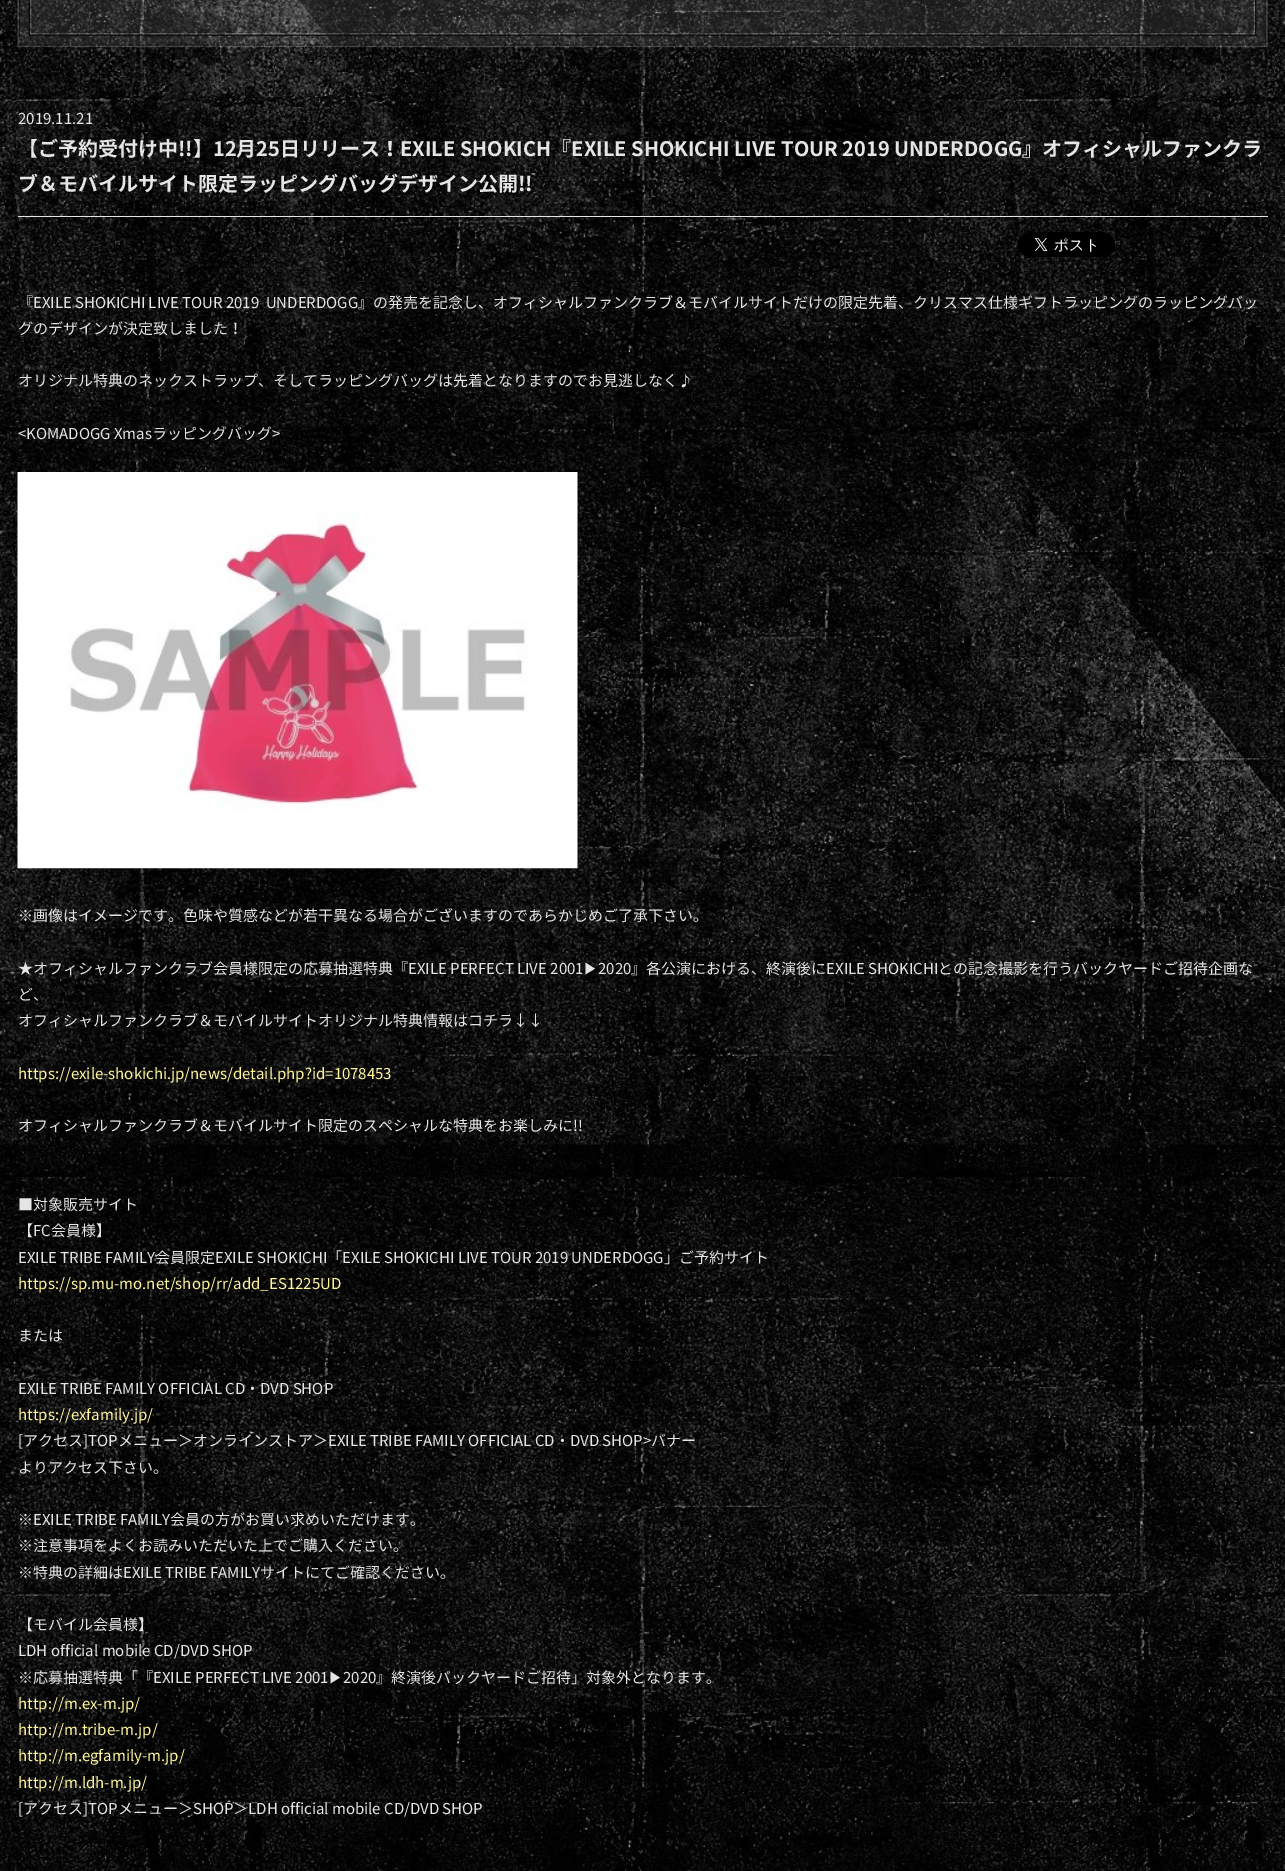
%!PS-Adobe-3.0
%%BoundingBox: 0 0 1285 1871
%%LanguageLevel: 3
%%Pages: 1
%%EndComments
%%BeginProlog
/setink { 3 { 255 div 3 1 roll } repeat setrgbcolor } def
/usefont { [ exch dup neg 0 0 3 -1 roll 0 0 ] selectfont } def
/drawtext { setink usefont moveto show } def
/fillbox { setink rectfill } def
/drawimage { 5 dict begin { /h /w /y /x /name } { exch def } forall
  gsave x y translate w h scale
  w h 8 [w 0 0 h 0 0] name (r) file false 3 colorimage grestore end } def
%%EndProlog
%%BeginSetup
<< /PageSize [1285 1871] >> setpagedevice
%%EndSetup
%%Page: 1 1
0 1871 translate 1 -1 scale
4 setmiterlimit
0 0 1285 1871 255 255 255 fillbox
(assets/img1.rgb) 0 1144 1285 727 drawimage
(assets/img2.rgb) 0 0 1285 1145 drawimage
(2019.11.21) 18 124 /NotoSansCJKJP-Regular 15 229 229 229 drawtext
18 216 1250 1 229 229 229 fillbox
(【ご予約受付け中!!】12月25日リリース！EXILE SHOKICH『EXILE SHOKICHI LIVE TOUR 2019 UNDERDOGG』オフィシャルファンクラ) 18 156 /NotoSansCJKJP-Bold 20 229 229 229 drawtext
(ブ＆モバイルサイト限定ラッピングバッグデザイン公開!!) 18 191 /NotoSansCJKJP-Bold 20 229 229 229 drawtext
(assets/img3.rgb) 1017 232 98 25 drawimage
(『EXILE SHOKICHI LIVE TOUR 2019  UNDERDOGG』の発売を記念し、オフィシャルファンクラブ＆モバイルサイトだけの限定先着、クリスマス仕様ギフトラッピングのラッピングバッ) 18 308 /NotoSansCJKJP-Regular 15 229 229 229 drawtext
(グのデザインが決定致しました！) 18 334 /NotoSansCJKJP-Regular 15 229 229 229 drawtext
(オリジナル特典のネックストラップ、そしてラッピングバッグは先着となりますのでお見逃しなく♪) 18 386 /NotoSansCJKJP-Regular 15 229 229 229 drawtext
(<KOMADOGG Xmasラッピングバッグ>) 18 439 /NotoSansCJKJP-Regular 15 229 229 229 drawtext
(assets/img4.rgb) 17 472 561 397 drawimage
(※画像はイメージです。色味や質感などが若干異なる場合がございますのであらかじめご了承下さい。) 18 921 /NotoSansCJKJP-Regular 15 229 229 229 drawtext
(★オフィシャルファンクラブ会員様限定の応募抽選特典『EXILE PERFECT LIVE 2001) 18 974 /NotoSansCJKJP-Regular 15 229 229 229 drawtext
(▶) 583 974 /WenQuanYiZenHei-Medium 15 229 229 229 drawtext
(2020』各公演における、終演後にEXILE SHOKICHIとの記念撮影を行うバックヤードご招待企画な) 598 974 /NotoSansCJKJP-Regular 15 229 229 229 drawtext
(ど、) 18 1000 /NotoSansCJKJP-Regular 15 229 229 229 drawtext
(オフィシャルファンクラブ＆モバイルサイトオリジナル特典情報はコチラ↓↓) 18 1026 /NotoSansCJKJP-Regular 15 229 229 229 drawtext
(https://exile-shokichi.jp/news/detail.php?id=1078453) 18 1079 /NotoSansCJKJP-Regular 15 255 245 156 drawtext
(オフィシャルファンクラブ＆モバイルサイト限定のスペシャルな特典をお楽しみに!!) 18 1131 /NotoSansCJKJP-Regular 15 229 229 229 drawtext
(■対象販売サイト) 18 1210 /NotoSansCJKJP-Regular 15 229 229 229 drawtext
(【FC会員様】) 18 1236 /NotoSansCJKJP-Regular 15 229 229 229 drawtext
(EXILE TRIBE FAMILY会員限定EXILE SHOKICHI「EXILE SHOKICHI LIVE TOUR 2019 UNDERDOGG」ご予約サイト) 18 1263 /NotoSansCJKJP-Regular 15 229 229 229 drawtext
(https://sp.mu-mo.net/shop/rr/add_ES1225UD) 18 1289 /NotoSansCJKJP-Regular 15 255 245 156 drawtext
(または) 18 1341 /NotoSansCJKJP-Regular 15 229 229 229 drawtext
(EXILE TRIBE FAMILY OFFICIAL CD・DVD SHOP) 18 1394 /NotoSansCJKJP-Regular 15 229 229 229 drawtext
(https://exfamily.jp/) 18 1420 /NotoSansCJKJP-Regular 15 255 245 156 drawtext
([アクセス]TOPメニュー＞オンラインストア＞EXILE TRIBE FAMILY OFFICIAL CD・DVD SHOP>バナー) 18 1446 /NotoSansCJKJP-Regular 15 229 229 229 drawtext
(よりアクセス下さい。) 18 1473 /NotoSansCJKJP-Regular 15 229 229 229 drawtext
(※EXILE TRIBE FAMILY会員の方がお買い求めいただけます。) 18 1525 /NotoSansCJKJP-Regular 15 229 229 229 drawtext
(※注意事項をよくお読みいただいた上でご購入ください。) 18 1551 /NotoSansCJKJP-Regular 15 229 229 229 drawtext
(※特典の詳細はEXILE TRIBE FAMILYサイトにてご確認ください。) 18 1578 /NotoSansCJKJP-Regular 15 229 229 229 drawtext
(【モバイル会員様】) 18 1630 /NotoSansCJKJP-Regular 15 229 229 229 drawtext
(LDH official mobile CD/DVD SHOP) 18 1656 /NotoSansCJKJP-Regular 15 229 229 229 drawtext
(※応募抽選特典「『EXILE PERFECT LIVE 2001) 18 1683 /NotoSansCJKJP-Regular 15 229 229 229 drawtext
(▶) 328 1683 /WenQuanYiZenHei-Medium 15 229 229 229 drawtext
(2020』終演後バックヤードご招待」対象外となります。) 343 1683 /NotoSansCJKJP-Regular 15 229 229 229 drawtext
(http://m.ex-m.jp/) 18 1709 /NotoSansCJKJP-Regular 15 255 245 156 drawtext
(http://m.tribe-m.jp/) 18 1735 /NotoSansCJKJP-Regular 15 255 245 156 drawtext
(http://m.egfamily-m.jp/) 18 1761 /NotoSansCJKJP-Regular 15 255 245 156 drawtext
(http://m.ldh-m.jp/) 18 1788 /NotoSansCJKJP-Regular 15 255 245 156 drawtext
([アクセス]TOPメニュー＞SHOP＞LDH official mobile CD/DVD SHOP) 18 1814 /NotoSansCJKJP-Regular 15 229 229 229 drawtext
showpage
%%EOF
